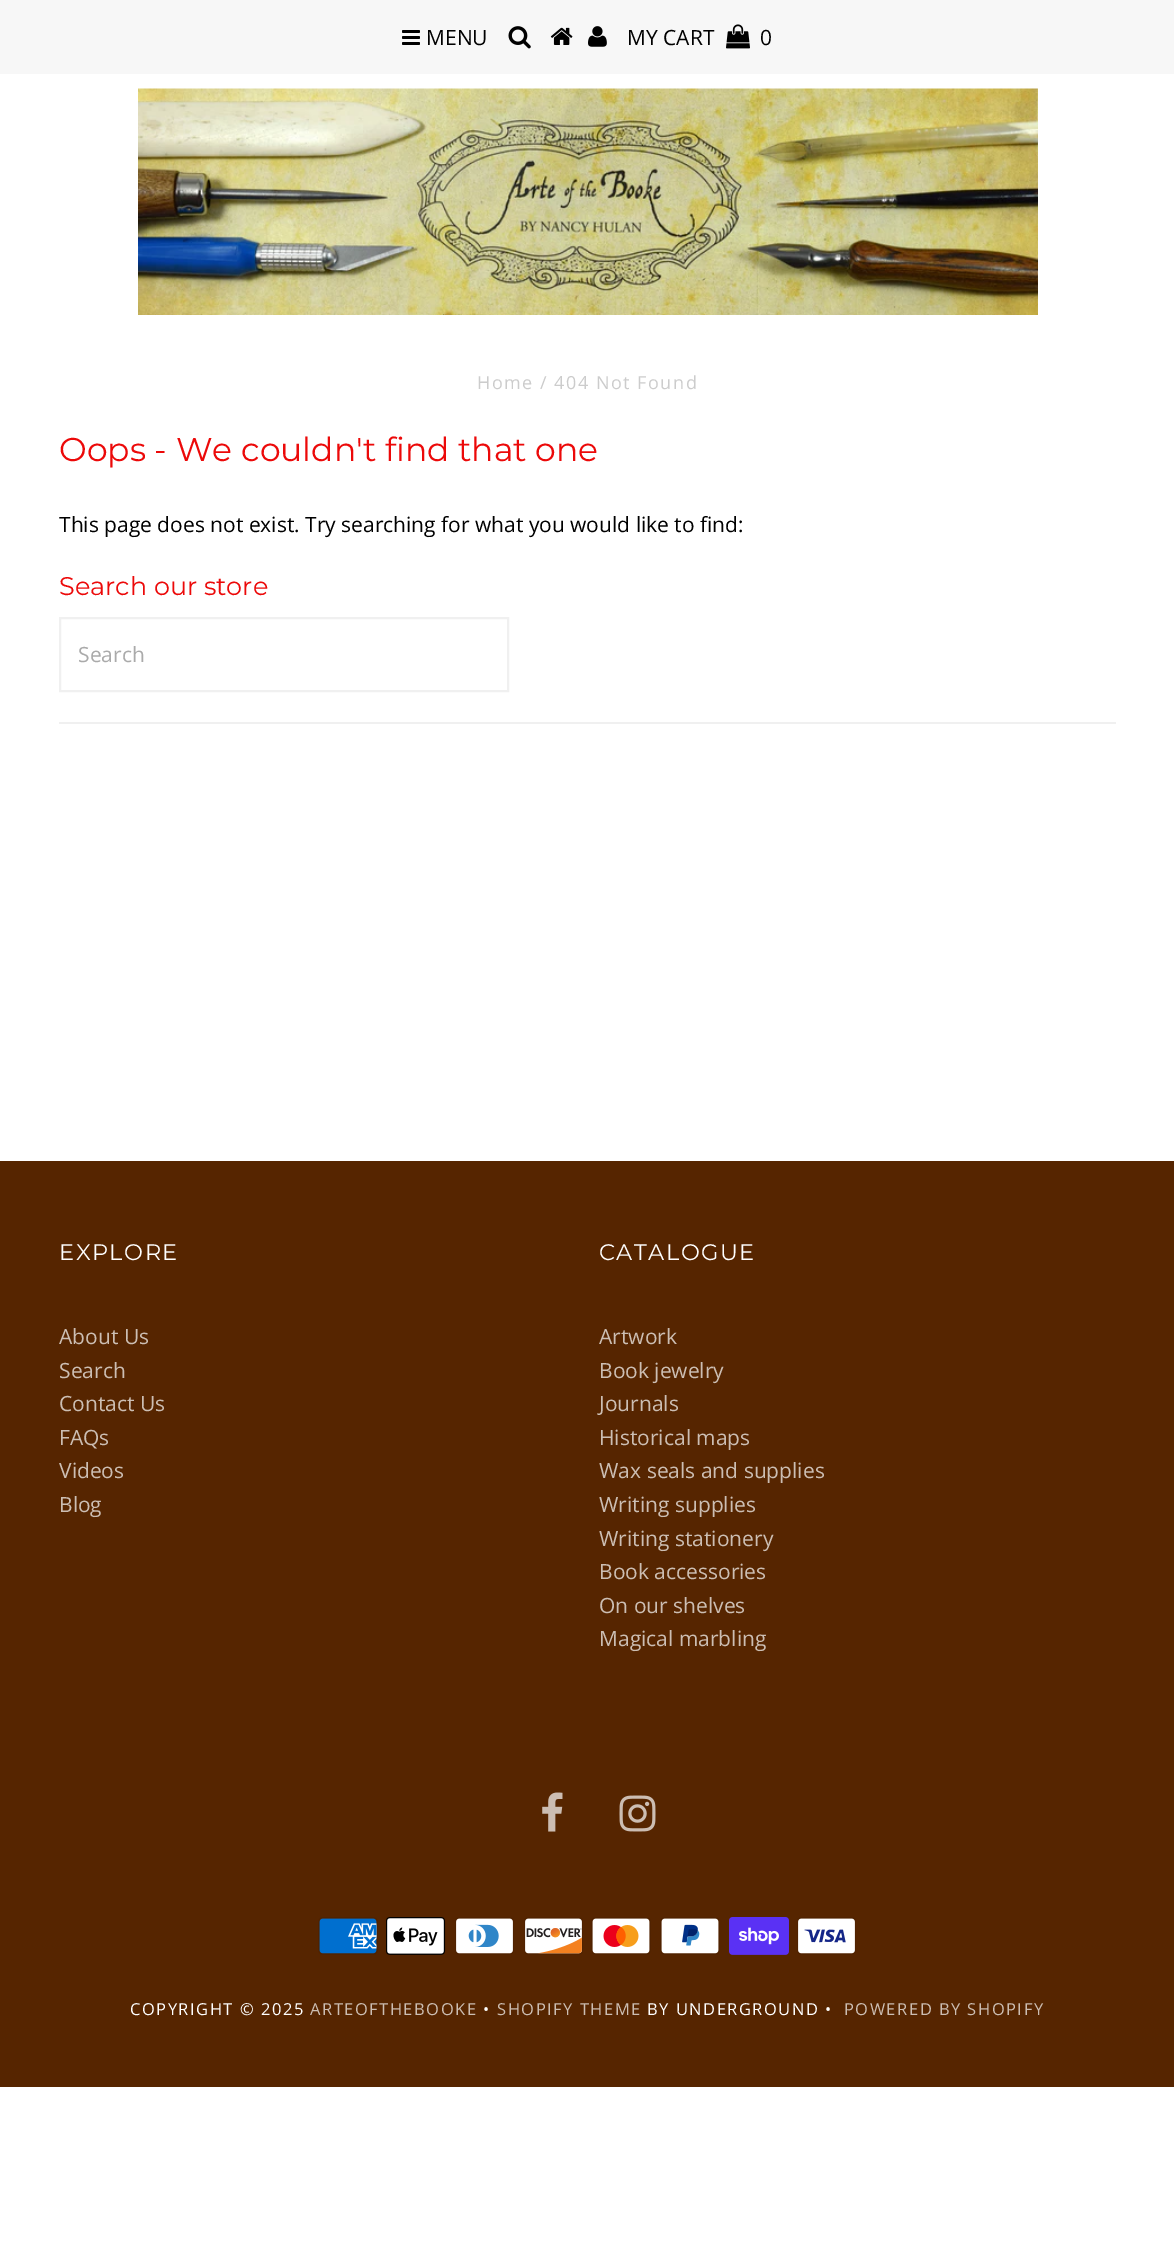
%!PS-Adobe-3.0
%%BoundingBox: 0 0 1174 2255
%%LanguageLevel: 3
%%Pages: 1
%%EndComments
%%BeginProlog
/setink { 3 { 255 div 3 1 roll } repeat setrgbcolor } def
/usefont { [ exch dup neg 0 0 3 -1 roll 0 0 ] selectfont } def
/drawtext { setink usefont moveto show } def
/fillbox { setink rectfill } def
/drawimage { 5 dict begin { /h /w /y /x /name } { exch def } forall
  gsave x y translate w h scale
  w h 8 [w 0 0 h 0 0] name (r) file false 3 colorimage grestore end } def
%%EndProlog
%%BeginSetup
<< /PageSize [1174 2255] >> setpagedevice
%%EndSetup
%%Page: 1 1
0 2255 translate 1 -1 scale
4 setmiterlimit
0 0 1174 2255 255 255 255 fillbox
0 0 1174 74 247 247 247 fillbox
(assets/img1.rgb) 402 30 18 15 drawimage
(MENU) 426 45 /OpenSans-Regular 21 0 0 0 drawtext
(assets/img2.rgb) 508 26 23 23 drawimage
(assets/img3.rgb) 550 27 23 18 drawimage
(assets/img4.rgb) 588 26 19 21 drawimage
(MY CART) 627 45 /OpenSans-Regular 21 0 0 0 drawtext
(assets/img5.rgb) 726 24 24 25 drawimage
(0) 760 45 /OpenSans-Regular 21 0 0 0 drawtext
(assets/img6.rgb) 138 88 900 227 drawimage
/OpenSans-Regular 18 usefont
204 204 204 setink
477 389 moveto 1.5 0 (Home / 404 Not Found) ashow
(Oops - We couldn't find that one) 59 461 /Montserrat-Regular 33 236 9 9 drawtext
(This page does not exist. Try searching for what you would like to find:) 59 532 /OpenSans-Regular 21 0 0 0 drawtext
59 722 1057 2 240 240 240 fillbox
(Search our store) 59 595 /Montserrat-Regular 25.5 236 9 9 drawtext
240 240 240 setink
2 setlinewidth
60 618 448 73 rectstroke
(Search) 78 662 /OpenSans-Regular 21 170 170 170 drawtext
0 1161 1174 926 86 37 0 fillbox
/Montserrat-Regular 22.5 usefont
255 255 255 setink
59 1260 moveto 1.5 0 (EXPLORE) ashow
(About Us) 59 1344 /OpenSans-Regular 21 204 190 179 drawtext
(Search) 59 1378 /OpenSans-Regular 21 204 190 179 drawtext
(Contact Us) 59 1411 /OpenSans-Regular 21 204 190 179 drawtext
(FAQs) 59 1445 /OpenSans-Regular 21 204 190 179 drawtext
(Videos) 59 1478 /OpenSans-Regular 21 204 190 179 drawtext
(Blog) 59 1512 /OpenSans-Regular 21 204 190 179 drawtext
/Montserrat-Regular 22.5 usefont
255 255 255 setink
599 1260 moveto 1.5 0 (CATALOGUE) ashow
(Artwork) 599 1344 /OpenSans-Regular 21 204 190 179 drawtext
(Book jewelry) 599 1378 /OpenSans-Regular 21 204 190 179 drawtext
(Journals) 599 1411 /OpenSans-Regular 21 204 190 179 drawtext
(Historical maps) 599 1445 /OpenSans-Regular 21 204 190 179 drawtext
(Wax seals and supplies) 599 1478 /OpenSans-Regular 21 204 190 179 drawtext
(Writing supplies) 599 1512 /OpenSans-Regular 21 204 190 179 drawtext
(Writing stationery) 599 1546 /OpenSans-Regular 21 204 190 179 drawtext
(Book accessories) 599 1579 /OpenSans-Regular 21 204 190 179 drawtext
(On our shelves) 599 1613 /OpenSans-Regular 21 204 190 179 drawtext
(Magical marbling) 599 1646 /OpenSans-Regular 21 204 190 179 drawtext
(assets/img7.rgb) 542 1792 21 40 drawimage
(assets/img8.rgb) 619 1795 37 37 drawimage
(assets/img9.rgb) 318 1917 60 38 drawimage
(assets/img10.rgb) 386 1917 60 38 drawimage
(assets/img11.rgb) 455 1917 59 38 drawimage
(assets/img12.rgb) 524 1917 59 38 drawimage
(assets/img13.rgb) 591 1917 60 38 drawimage
(assets/img14.rgb) 660 1917 60 38 drawimage
(assets/img15.rgb) 729 1917 60 38 drawimage
(assets/img16.rgb) 797 1917 59 38 drawimage
/OpenSans-Regular 16.5 usefont
255 255 255 setink
130 2015 moveto 1.5 0 (COPYRIGHT © 2025) ashow
204 190 179 setink
310 2015 moveto 1.5 0 (ARTEOFTHEBOOKE) ashow
255 255 255 setink
483 2015 moveto 1.5 0 (•) ashow
204 190 179 setink
497 2015 moveto 1.5 0 (SHOPIFY THEME) ashow
255 255 255 setink
647 2015 moveto 1.5 0 (BY UNDERGROUND •) ashow
204 190 179 setink
844 2015 moveto 1.5 0 (POWERED BY SHOPIFY) ashow
showpage
%%EOF
